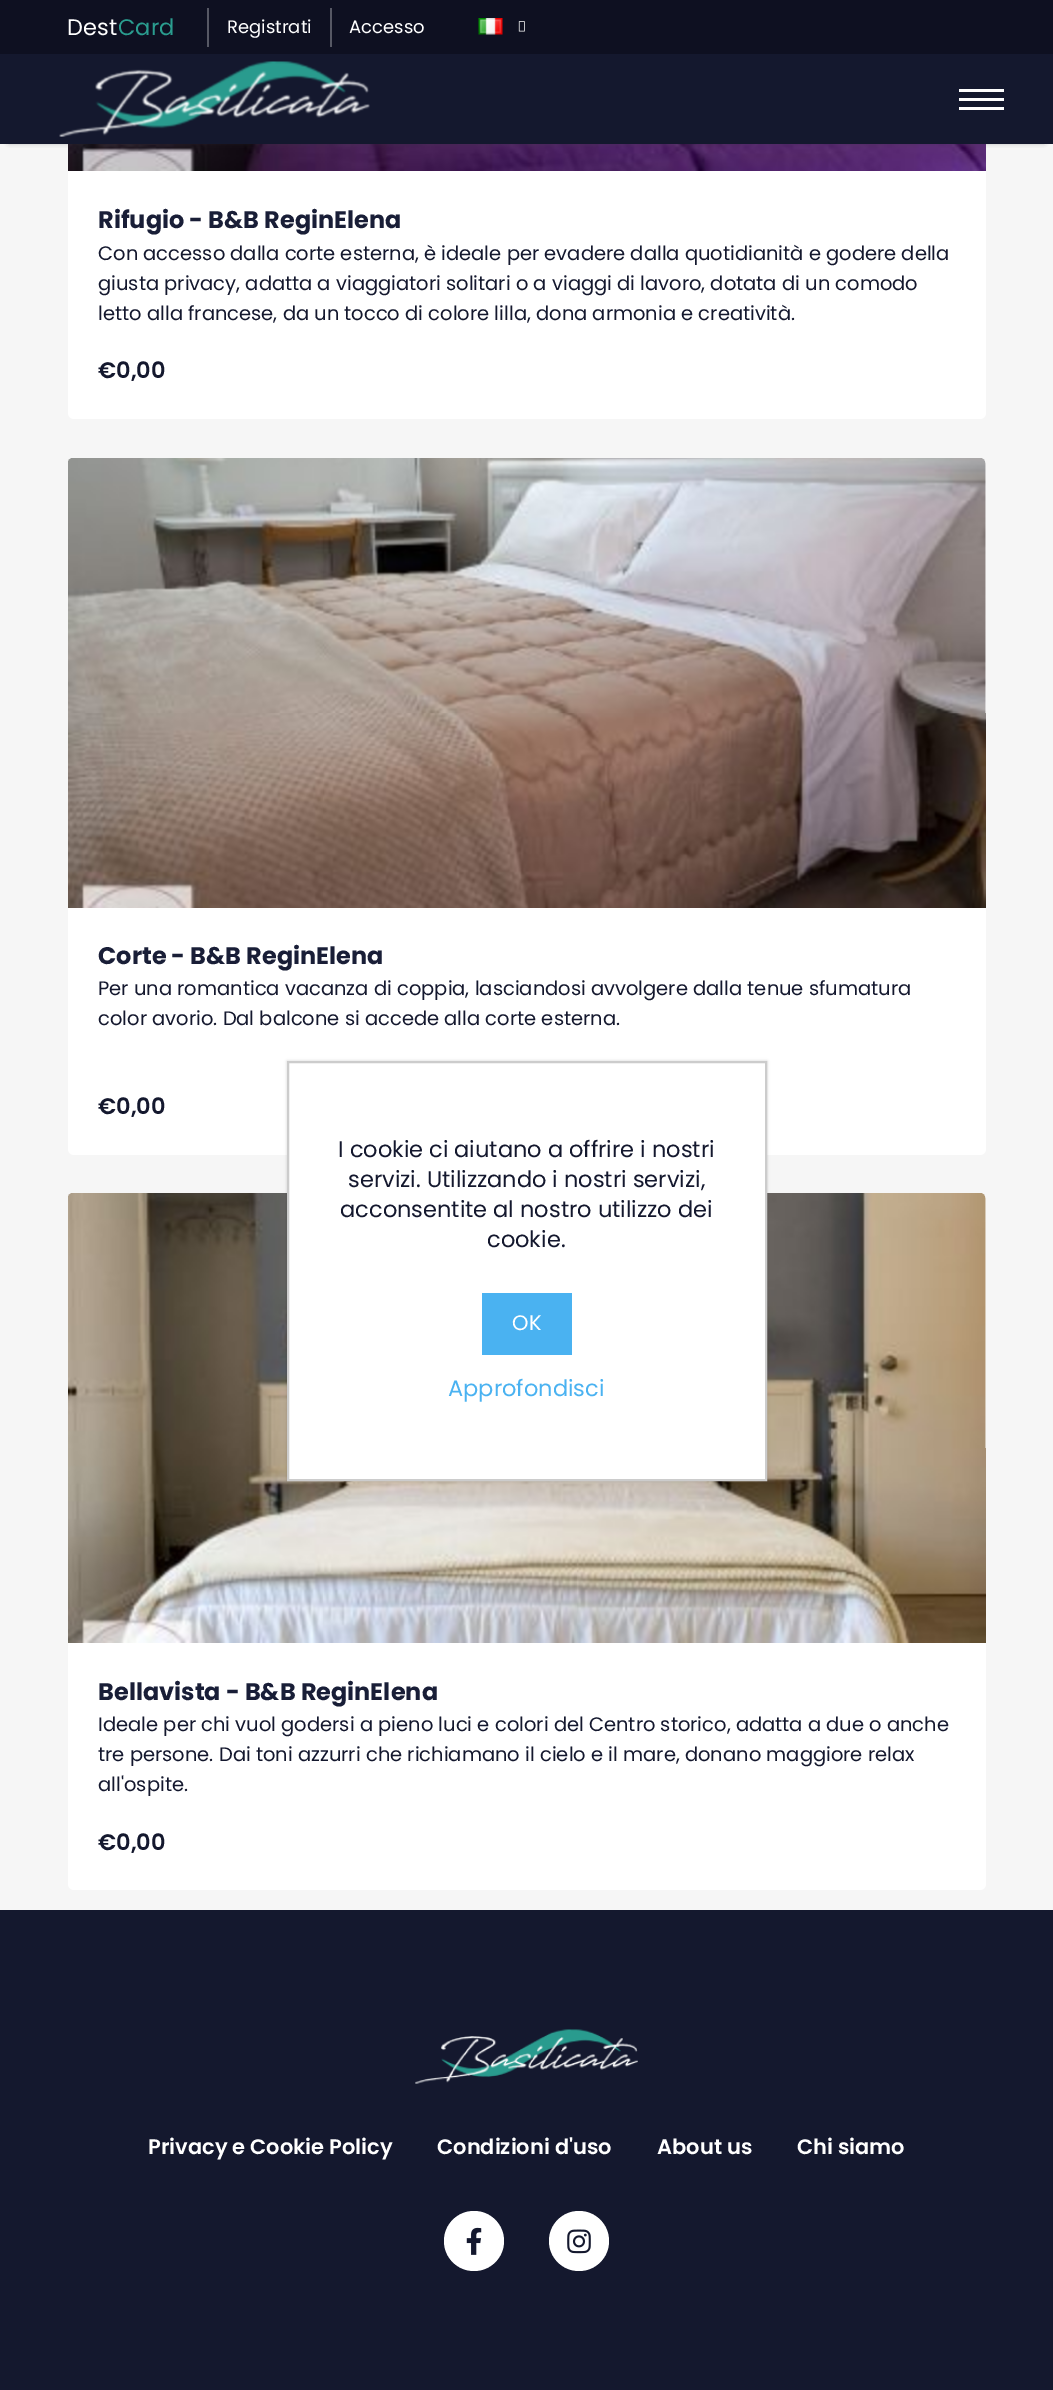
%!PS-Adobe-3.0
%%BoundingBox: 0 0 1053 2390
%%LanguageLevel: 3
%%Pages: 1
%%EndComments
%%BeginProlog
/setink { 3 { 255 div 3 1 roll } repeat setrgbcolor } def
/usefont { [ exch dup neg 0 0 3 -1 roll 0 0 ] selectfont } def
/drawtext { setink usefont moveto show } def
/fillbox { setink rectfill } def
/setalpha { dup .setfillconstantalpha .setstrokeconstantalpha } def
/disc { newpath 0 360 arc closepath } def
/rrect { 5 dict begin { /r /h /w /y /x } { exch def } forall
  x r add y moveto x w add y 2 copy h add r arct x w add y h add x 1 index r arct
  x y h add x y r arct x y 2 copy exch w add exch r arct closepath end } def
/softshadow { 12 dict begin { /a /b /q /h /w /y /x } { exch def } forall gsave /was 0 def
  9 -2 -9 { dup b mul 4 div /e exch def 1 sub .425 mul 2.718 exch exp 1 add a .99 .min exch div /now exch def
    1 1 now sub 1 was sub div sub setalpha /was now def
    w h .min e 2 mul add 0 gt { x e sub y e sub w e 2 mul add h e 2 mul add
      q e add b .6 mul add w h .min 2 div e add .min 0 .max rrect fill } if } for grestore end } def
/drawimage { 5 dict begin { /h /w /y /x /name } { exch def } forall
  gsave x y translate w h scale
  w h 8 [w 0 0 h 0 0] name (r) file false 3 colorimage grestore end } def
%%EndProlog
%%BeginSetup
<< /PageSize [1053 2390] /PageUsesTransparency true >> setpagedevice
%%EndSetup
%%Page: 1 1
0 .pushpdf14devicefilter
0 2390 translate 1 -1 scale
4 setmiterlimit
0 0 1053 2390 246 246 246 fillbox
255 255 255 setink
68 -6 918 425 6 rrect fill
0 0 1053 54 14 16 33 fillbox
(Dest) 67 35 /Poppins-Regular 22.5 255 255 255 drawtext
(Card) 118 35 /Poppins-Regular 22.5 42 157 143 drawtext
207 8 2 39 86 88 100 fillbox
(Registrati) 227 33 /Poppins-Regular 18 255 255 255 drawtext
330 8 2 39 86 88 100 fillbox
(Accesso) 349 33 /Poppins-Regular 18 255 255 255 drawtext
(assets/img1.rgb) 478 18 25 17 drawimage
(assets/img2.rgb) 518 21 7 11 drawimage
(assets/img4.rgb) 68 144 918 27 drawimage
51 51 51 setink
9 69 1035 72 0 3 1 softshadow
0 54 1053 90 20 24 46 fillbox
(assets/img3.rgb) 59 61 311 76 drawimage
959 89 45 3 255 255 255 fillbox
959 98 45 3 255 255 255 fillbox
959 107 45 3 255 255 255 fillbox
(Rifugio - B&B ReginElena) 98 228 /Poppins-Bold 24 25 30 55 drawtext
(Con accesso dalla corte esterna, è ideale per evadere dalla quotidianità e godere della) 98 260 /Poppins-Regular 19.5 20 24 46 drawtext
(giusta privacy, adatta a viaggiatori solitari o a viaggi di lavoro, dotata di un comodo) 98 290 /Poppins-Regular 19.5 20 24 46 drawtext
(letto alla francese, da un tocco di colore lilla, dona armonia e creatività.) 98 320 /Poppins-Regular 19.5 20 24 46 drawtext
(€0,00) 98 378 /Poppins-SemiBold 22.5 20 24 46 drawtext
255 255 255 setink
68 458 918 697 6 rrect fill
(assets/img5.rgb) 68 458 918 450 drawimage
(Corte - B&B ReginElena) 98 964 /Poppins-Bold 24 25 30 55 drawtext
(Per una romantica vacanza di coppia, lasciandosi avvolgere dalla tenue sfumatura) 98 995 /Poppins-Regular 19.5 20 24 46 drawtext
(color avorio. Dal balcone si accede alla corte esterna.) 98 1025 /Poppins-Regular 19.5 20 24 46 drawtext
(€0,00) 98 1114 /Poppins-SemiBold 22.5 20 24 46 drawtext
255 255 255 setink
68 1193 918 697 6 rrect fill
(assets/img6.rgb) 68 1193 918 450 drawimage
(Bellavista - B&B ReginElena) 98 1700 /Poppins-Bold 24 25 30 55 drawtext
(Ideale per chi vuol godersi a pieno luci e colori del Centro storico, adatta a due o anche) 98 1731 /Poppins-Regular 19.5 20 24 46 drawtext
(tre persone. Dai toni azzurri che richiamano il cielo e il mare, donano maggiore relax) 98 1761 /Poppins-Regular 19.5 20 24 46 drawtext
(all'ospite.) 98 1791 /Poppins-Regular 19.5 20 24 46 drawtext
(€0,00) 98 1850 /Poppins-SemiBold 22.5 20 24 46 drawtext
0 0 0 setink
287 1061 480 420 0 1.5 0.15 softshadow
255 255 255 setink
288 1062 moveto 766 1062 lineto 766 1480 lineto 288 1480 lineto closepath gsave fill grestore
204 204 204 setink
2 setlinewidth
stroke
(I cookie ci aiutano a offrire i nostri) 338 1157 /Poppins-Regular 22.5 20 24 46 drawtext
(servizi. Utilizzando i nostri servizi,) 348 1187 /Poppins-Regular 22.5 20 24 46 drawtext
(acconsentite al nostro utilizzo dei) 340 1217 /Poppins-Regular 22.5 20 24 46 drawtext
(cookie.) 487 1247 /Poppins-Regular 22.5 20 24 46 drawtext
482 1293 90 62 74 178 241 fillbox
(OK) 512 1330 /Poppins-Regular 21 255 255 255 drawtext
(Approfondisci) 448 1396 /Poppins-Regular 22.5 74 178 241 drawtext
0 1910 1053 480 20 24 46 fillbox
(assets/img7.rgb) 415 2029 223 55 drawimage
(Privacy e Cookie Policy) 148 2154 /Poppins-SemiBold 21 255 255 255 drawtext
(Condizioni d'uso) 437 2154 /Poppins-SemiBold 21 255 255 255 drawtext
(About us) 657 2154 /Poppins-SemiBold 21 255 255 255 drawtext
(Chi siamo) 797 2154 /Poppins-SemiBold 21 255 255 255 drawtext
474 2241 30 disc fill
(assets/img8.rgb) 466 2227 16 28 drawimage
579 2241 30 disc fill
(assets/img9.rgb) 567 2229 24 25 drawimage
.poppdf14devicefilter showpage
%%EOF
